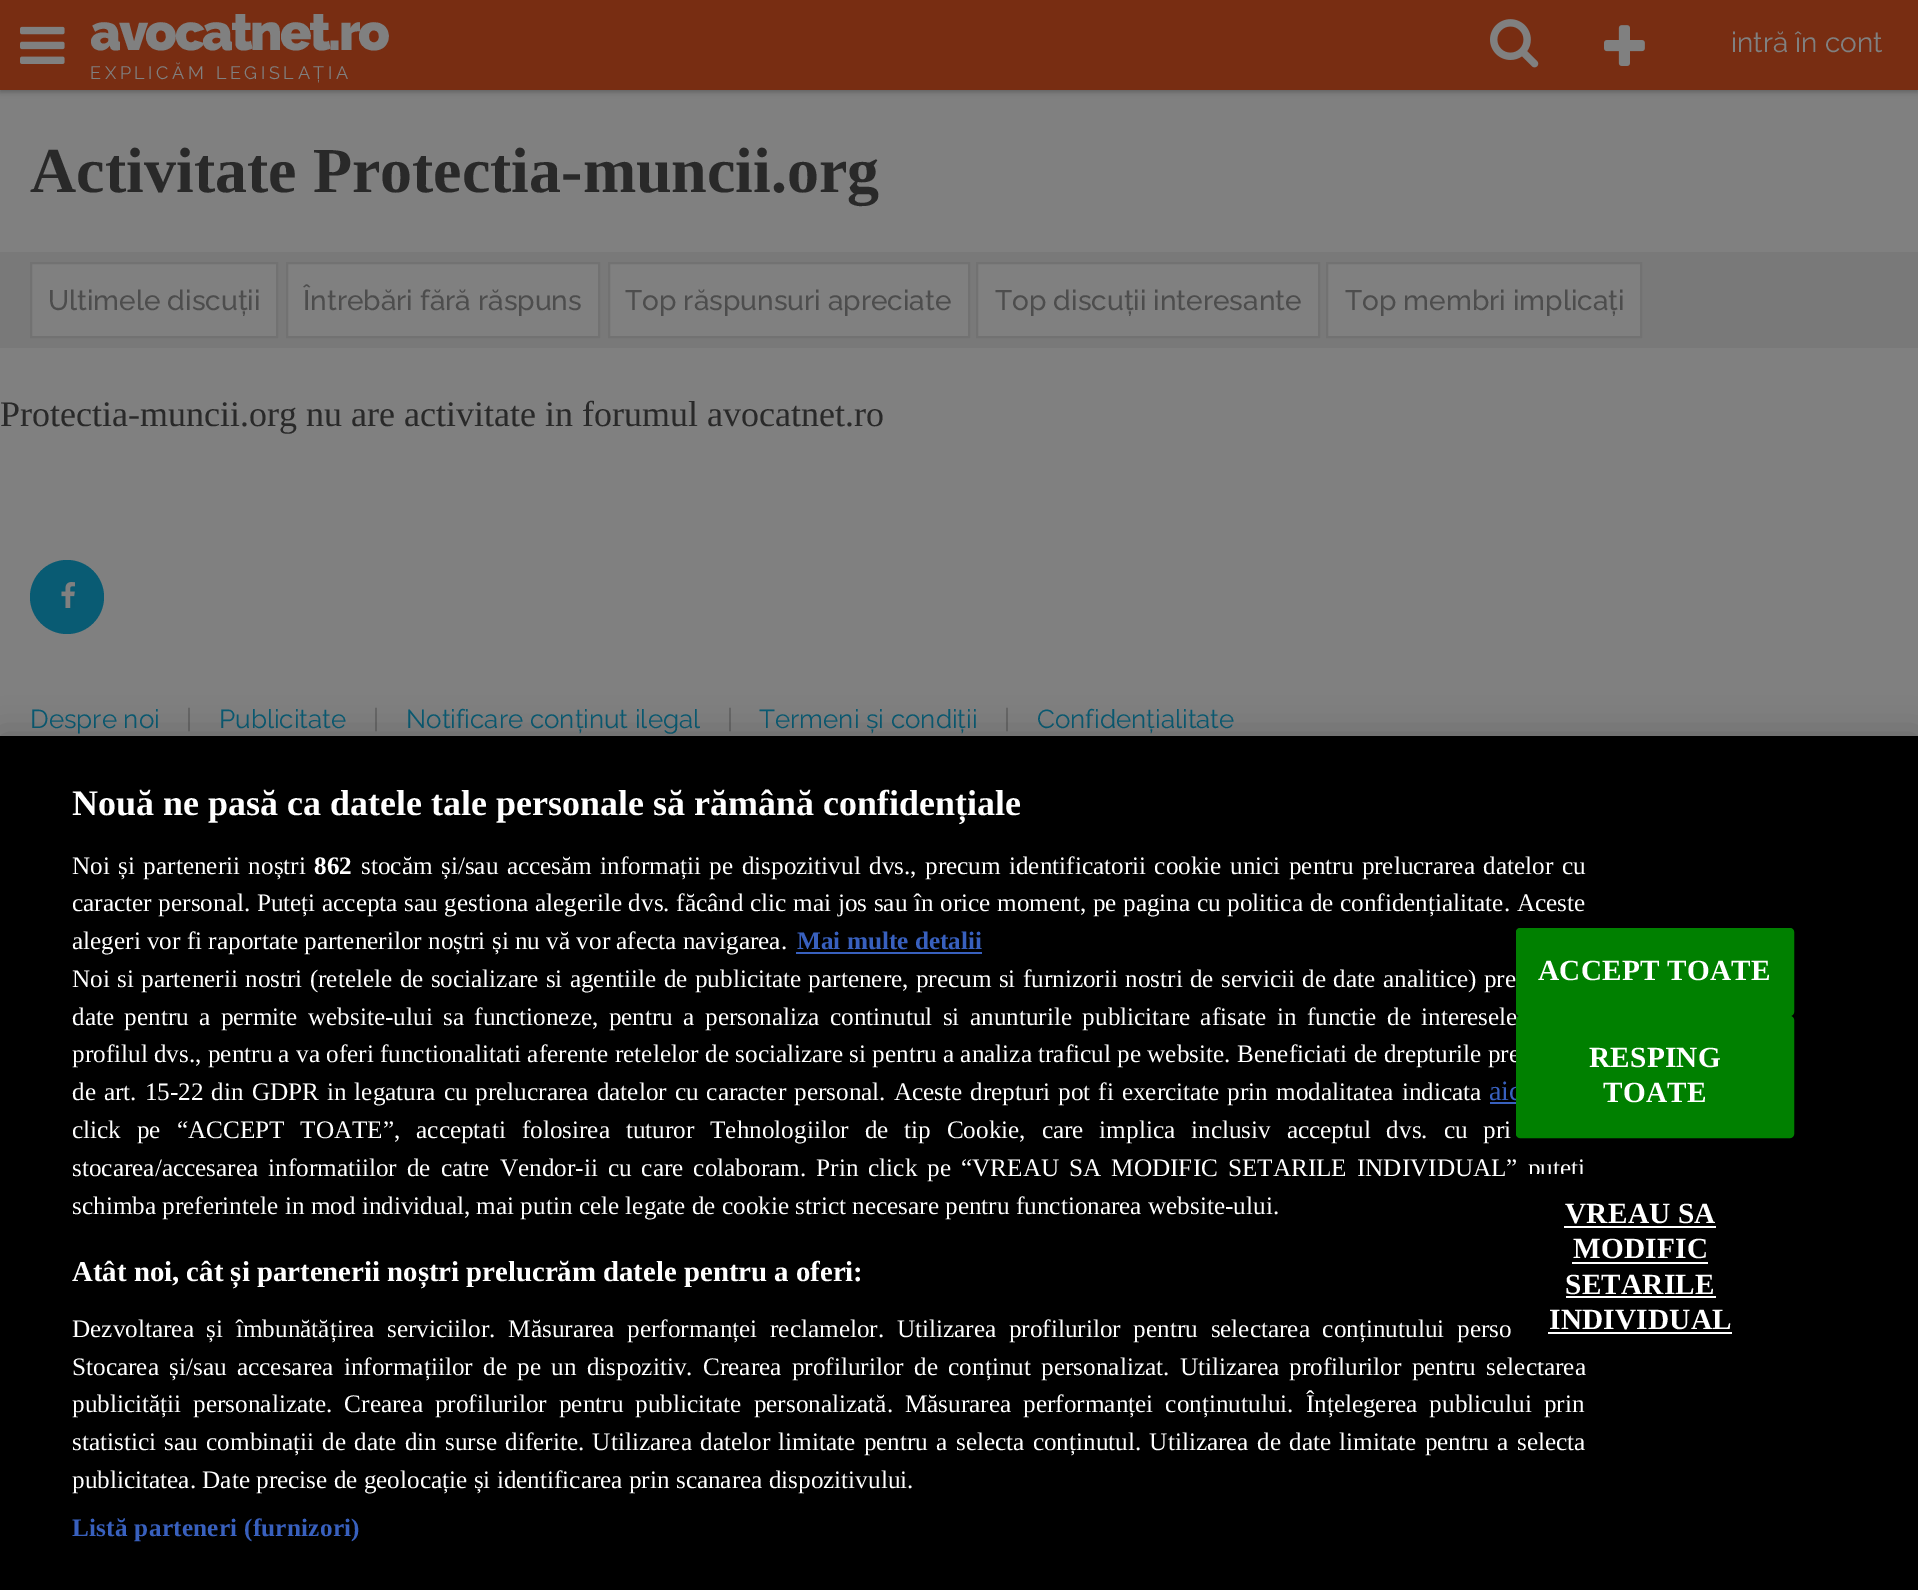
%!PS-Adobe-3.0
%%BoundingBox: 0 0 1918 1590
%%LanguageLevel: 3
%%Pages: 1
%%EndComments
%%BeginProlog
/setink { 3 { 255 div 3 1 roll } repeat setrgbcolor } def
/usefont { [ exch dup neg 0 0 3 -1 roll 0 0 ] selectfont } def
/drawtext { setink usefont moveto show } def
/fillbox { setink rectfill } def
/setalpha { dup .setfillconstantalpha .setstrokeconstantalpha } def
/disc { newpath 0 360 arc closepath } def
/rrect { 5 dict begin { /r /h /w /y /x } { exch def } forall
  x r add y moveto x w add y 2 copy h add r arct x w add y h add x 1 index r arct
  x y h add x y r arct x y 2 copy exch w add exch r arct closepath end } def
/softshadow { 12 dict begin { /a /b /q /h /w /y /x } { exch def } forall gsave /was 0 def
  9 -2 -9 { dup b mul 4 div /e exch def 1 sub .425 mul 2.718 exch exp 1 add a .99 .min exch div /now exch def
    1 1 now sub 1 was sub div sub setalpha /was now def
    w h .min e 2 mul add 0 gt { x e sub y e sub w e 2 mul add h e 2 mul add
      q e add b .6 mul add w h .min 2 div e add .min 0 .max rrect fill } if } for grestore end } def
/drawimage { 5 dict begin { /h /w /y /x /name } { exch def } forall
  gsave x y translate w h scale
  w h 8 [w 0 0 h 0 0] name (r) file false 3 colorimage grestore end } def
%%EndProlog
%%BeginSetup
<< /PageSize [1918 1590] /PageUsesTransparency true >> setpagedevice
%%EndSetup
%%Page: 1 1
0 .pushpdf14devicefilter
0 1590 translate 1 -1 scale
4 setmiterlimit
0 0 1918 1590 128 128 128 fillbox
0 0 0 setink
0 2 1918 90 0 3 0.25 softshadow
0 0 1918 90 120 45 18 fillbox
(assets/img1.rgb) 20 26 45 38 drawimage
/Raleway-Black 52 usefont
128 128 128 setink
90 50 moveto -2.6 0 (avocatnet.ro) ashow
/Raleway-Regular 18 usefont
90 79 moveto 3.6 0 (EXPLICĂM LEGISLAȚIA) ashow
(assets/img2.rgb) 1490 19 49 49 drawimage
(assets/img3.rgb) 1604 25 41 41 drawimage
(intră în cont) 1731 52 /Raleway-Regular 28 128 128 128 drawtext
(Activitate Protectia-muncii.org) 30 192 /LiberationSerif-Bold 64 41 41 41 drawtext
0 252 1918 96 121 121 121 fillbox
128 128 128 setink
31 263 moveto 277 263 lineto 277 337 lineto 31 337 lineto closepath gsave fill grestore
114 114 114 setink
2 setlinewidth
stroke
(Ultimele discuții) 48 310 /Raleway-Medium 28 77 77 77 drawtext
128 128 128 setink
287 263 moveto 599 263 lineto 599 337 lineto 287 337 lineto closepath gsave fill grestore
114 114 114 setink
stroke
(Întrebări fără răspuns) 303 310 /Raleway-Medium 28 77 77 77 drawtext
128 128 128 setink
609 263 moveto 969 263 lineto 969 337 lineto 609 337 lineto closepath gsave fill grestore
114 114 114 setink
stroke
(Top răspunsuri apreciate) 625 310 /Raleway-Medium 28 77 77 77 drawtext
128 128 128 setink
977 263 moveto 1319 263 lineto 1319 337 lineto 977 337 lineto closepath gsave fill grestore
114 114 114 setink
stroke
(Top discuții interesante) 995 310 /Raleway-Medium 28 77 77 77 drawtext
128 128 128 setink
1327 263 moveto 1641 263 lineto 1641 337 lineto 1327 337 lineto closepath gsave fill grestore
114 114 114 setink
stroke
(Top membri implicați) 1345 310 /Raleway-Medium 28 77 77 77 drawtext
(Protectia-muncii.org nu are activitate in forumul avocatnet.ro) 0 426 /LiberationSerif-Regular 36 41 41 41 drawtext
9 91 115 setink
67 597 37 disc fill
(assets/img4.rgb) 61 582 14 26 drawimage
(Despre noi) 30 728 /Raleway-Regular 26 9 91 115 drawtext
(|) 186 728 /Raleway-Regular 26 94 94 94 drawtext
(Publicitate) 219 728 /Raleway-Regular 26 9 91 115 drawtext
(|) 373 728 /Raleway-Regular 26 94 94 94 drawtext
(Notificare conținut ilegal) 406 728 /Raleway-Regular 26 9 91 115 drawtext
(|) 727 728 /Raleway-Regular 26 94 94 94 drawtext
(Termeni și condiții) 759 728 /Raleway-Regular 26 9 91 115 drawtext
(|) 1004 728 /Raleway-Regular 26 94 94 94 drawtext
(Confidențialitate) 1037 728 /Raleway-Regular 26 9 91 115 drawtext
0 0 0 setink
0 736 1918 854 0 18 0.2 softshadow
0 736 1918 854 0 0 0 fillbox
(Nouă ne pasă ca datele tale personale să rămână confidențiale) 72 815 /LiberationSerif-Bold 36 255 255 255 drawtext
/LiberationSerif-Regular 25.2 usefont
72 874 moveto 2.1 0 32 (Noi și partenerii noștri) widthshow
(862) 314 874 /LiberationSerif-Bold 25.2 255 255 255 drawtext
/LiberationSerif-Regular 25.2 usefont
361 874 moveto 2.1 0 32 (stocăm și/sau accesăm informații pe dispozitivul dvs., precum identificatorii cookie unici pentru prelucrarea datelor cu) widthshow
72 911 moveto 0.35 0 32 (caracter personal. Puteți accepta sau gestiona alegerile dvs. făcând clic mai jos sau în orice moment, pe pagina cu politica de confidențialitate. Aceste) widthshow
(alegeri vor fi raportate partenerilor noștri și nu vă vor afecta navigarea.) 72 949 /LiberationSerif-Regular 25.2 255 255 255 drawtext
(Mai multe detalii) 797 949 /LiberationSerif-Bold 25.2 56 96 190 drawtext
796 952 186 2 56 96 190 fillbox
/LiberationSerif-Regular 25.2 usefont
255 255 255 setink
72 987 moveto 1 0 32 (Noi si partenerii nostri \(retelele de socializare si agentiile de publicitate partenere, precum si furnizorii nostri de servicii de date analitice\) pre) widthshow
72 1025 moveto 4.1 0 32 (date pentru a permite website-ului sa functioneze, pentru a personaliza continutul si anunturile publicitare afisate in functie de interesele) widthshow
(profilul dvs., pentru a va oferi functionalitati aferente retelelor de socializare si pentru a analiza traficul pe website. Beneficiati de drepturile pre) 72 1062 /LiberationSerif-Regular 25.2 255 255 255 drawtext
72 1100 moveto 1.7 0 32 (de art. 15-22 din GDPR in legatura cu prelucrarea datelor cu caracter personal. Aceste drepturi pot fi exercitate prin modalitatea indicata) widthshow
(aic) 1489 1100 /LiberationSerif-Regular 28 56 96 190 drawtext
1490 1102 26 2 56 96 190 fillbox
/LiberationSerif-Regular 25.2 usefont
255 255 255 setink
72 1138 moveto 9.6 0 32 (click pe “ACCEPT TOATE”, acceptati folosirea tuturor Tehnologiilor de tip Cookie, care implica inclusiv acceptul dvs. cu pri) widthshow
72 1176 moveto 3.75 0 32 (stocarea/accesarea informatiilor de catre Vendor-ii cu care colaboram. Prin click pe “VREAU SA MODIFIC SETARILE INDIVIDUAL” puteti) widthshow
(schimba preferintele in mod individual, mai putin cele legate de cookie strict necesare pentru functionarea website-ului.) 72 1214 /LiberationSerif-Regular 25.2 255 255 255 drawtext
(Atât noi, cât și partenerii noștri prelucrăm datele pentru a oferi:) 72 1281 /LiberationSerif-Bold 28.8 255 255 255 drawtext
/LiberationSerif-Regular 25.2 usefont
72 1337 moveto 6.4 0 32 (Dezvoltarea și îmbunătățirea serviciilor. Măsurarea performanței reclamelor. Utilizarea profilurilor pentru selectarea conținutului perso) widthshow
72 1375 moveto 4.1 0 32 (Stocarea și/sau accesarea informațiilor de pe un dispozitiv. Crearea profilurilor de conținut personalizat. Utilizarea profilurilor pentru selectarea) widthshow
72 1412 moveto 5.75 0 32 (publicității personalizate. Crearea profilurilor pentru publicitate personalizată. Măsurarea performanței conținutului. Înțelegerea publicului prin) widthshow
72 1450 moveto 2 0 32 (statistici sau combinații de date din surse diferite. Utilizarea datelor limitate pentru a selecta conținutul. Utilizarea de date limitate pentru a selecta) widthshow
(publicitatea. Date precise de geolocație și identificarea prin scanarea dispozitivului.) 72 1488 /LiberationSerif-Regular 25.2 255 255 255 drawtext
/LiberationSerif-Bold 25.2 usefont
56 96 190 setink
72 1536 moveto 0.25 0 (Listă parteneri \(furnizori\)) ashow
0 128 0 setink
1517 929 276 86 3 rrect gsave fill grestore
stroke
/LiberationSerif-Bold 29.25 usefont
255 255 255 setink
1538 980 moveto 0.25 0 (ACCEPT TOATE) ashow
0 128 0 setink
1517 1017 276 120 3 rrect gsave fill grestore
stroke
255 255 255 setink
1589 1067 moveto 0.25 0 (RESPING) ashow
1603 1102 moveto 0.25 0 (TOATE) ashow
0 0 0 setink
1516 1174 250 188 4 rrect fill
255 255 255 setink
1565 1223 moveto 0.25 0 (VREAU SA) ashow
1564 1226 152 2 255 255 255 fillbox
1573 1258 moveto 0.25 0 (MODIFIC) ashow
1572 1262 136 2 255 255 255 fillbox
1565 1294 moveto 0.25 0 (SETARILE) ashow
1566 1296 150 2 255 255 255 fillbox
1549 1329 moveto 0.25 0 (INDIVIDUAL) ashow
1548 1332 184 2 255 255 255 fillbox
.poppdf14devicefilter showpage
%%EOF
